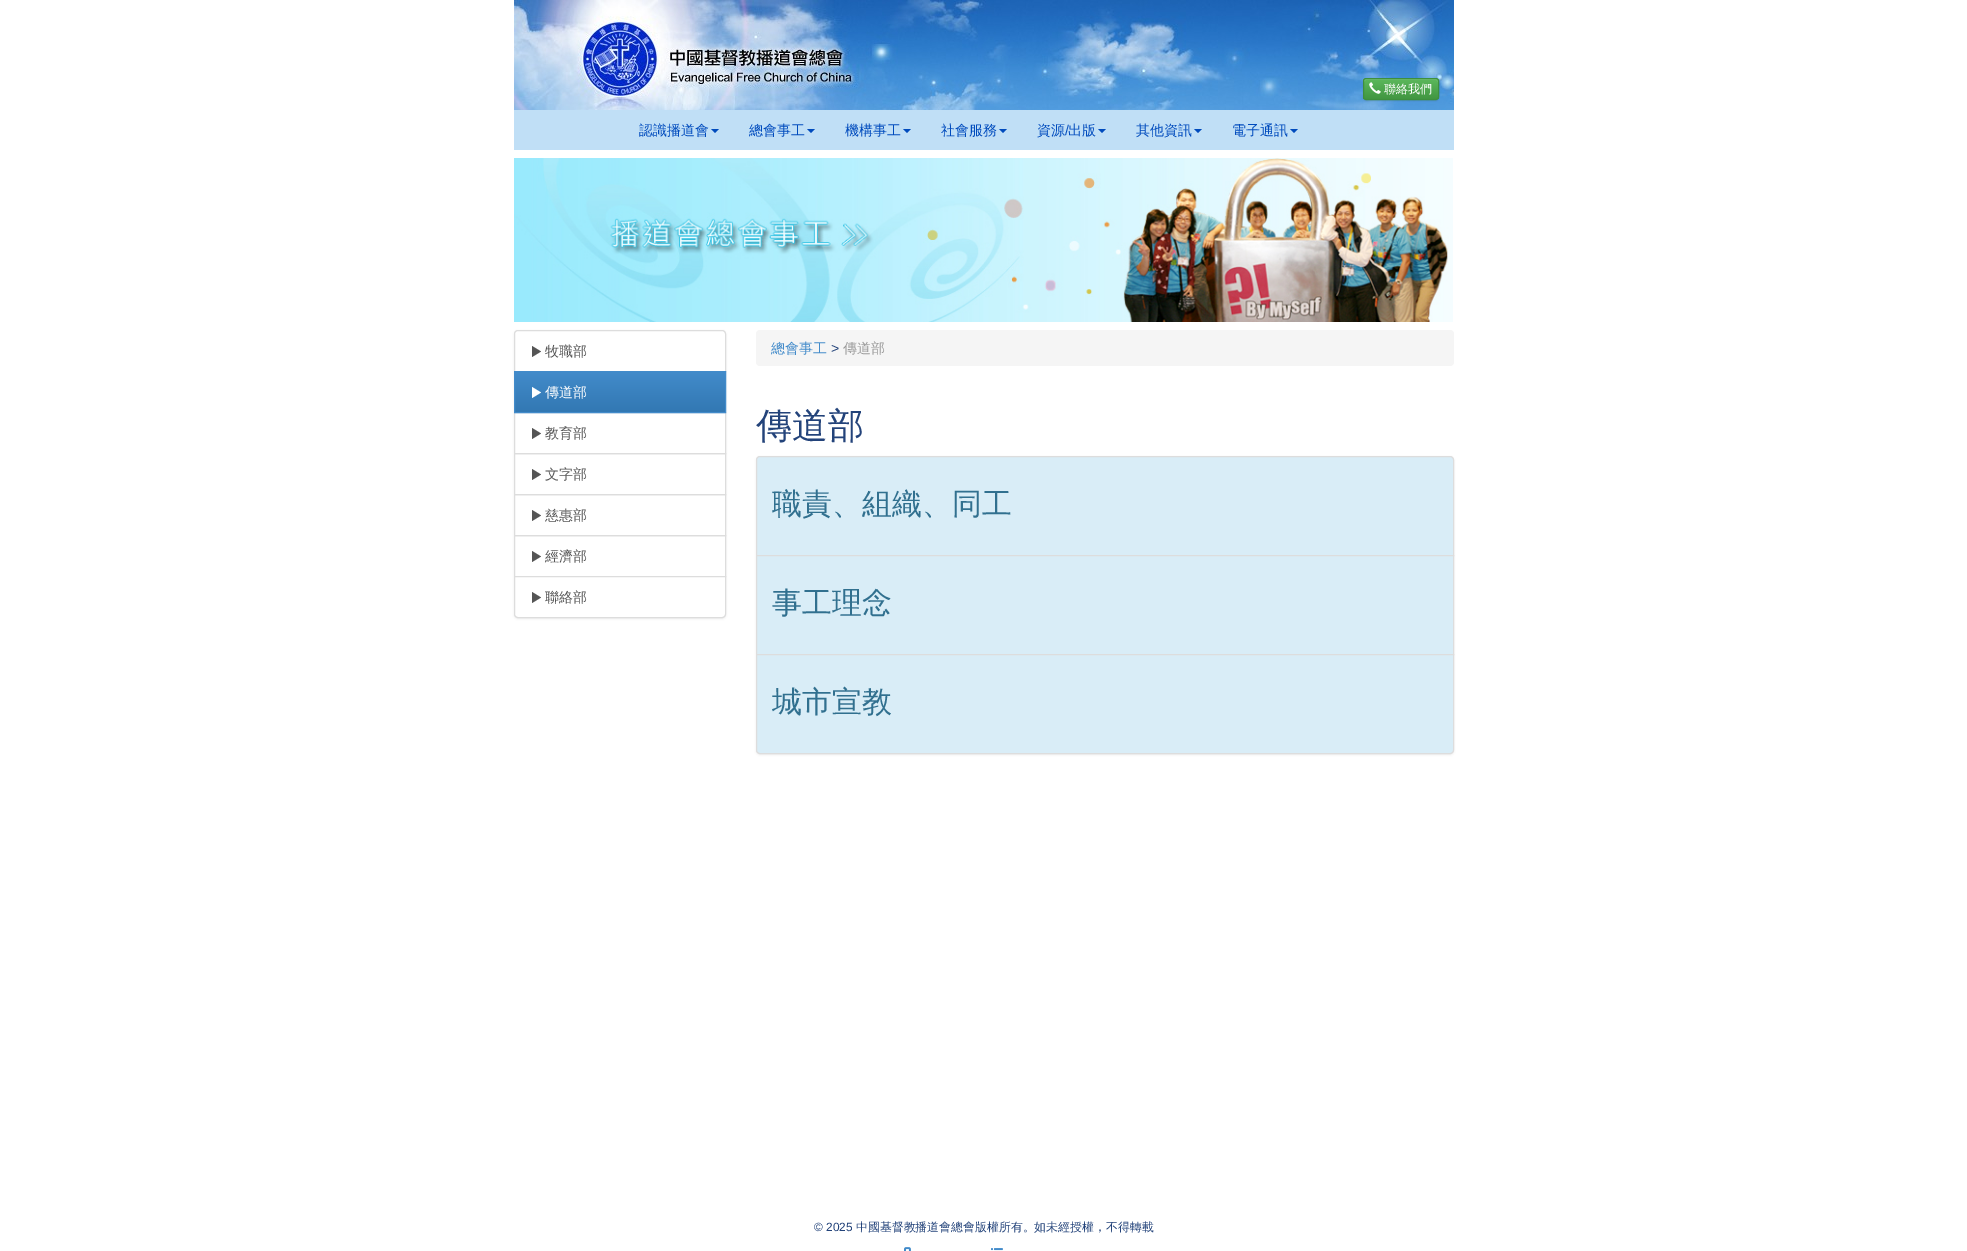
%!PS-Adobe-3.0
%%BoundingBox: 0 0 1967 1251
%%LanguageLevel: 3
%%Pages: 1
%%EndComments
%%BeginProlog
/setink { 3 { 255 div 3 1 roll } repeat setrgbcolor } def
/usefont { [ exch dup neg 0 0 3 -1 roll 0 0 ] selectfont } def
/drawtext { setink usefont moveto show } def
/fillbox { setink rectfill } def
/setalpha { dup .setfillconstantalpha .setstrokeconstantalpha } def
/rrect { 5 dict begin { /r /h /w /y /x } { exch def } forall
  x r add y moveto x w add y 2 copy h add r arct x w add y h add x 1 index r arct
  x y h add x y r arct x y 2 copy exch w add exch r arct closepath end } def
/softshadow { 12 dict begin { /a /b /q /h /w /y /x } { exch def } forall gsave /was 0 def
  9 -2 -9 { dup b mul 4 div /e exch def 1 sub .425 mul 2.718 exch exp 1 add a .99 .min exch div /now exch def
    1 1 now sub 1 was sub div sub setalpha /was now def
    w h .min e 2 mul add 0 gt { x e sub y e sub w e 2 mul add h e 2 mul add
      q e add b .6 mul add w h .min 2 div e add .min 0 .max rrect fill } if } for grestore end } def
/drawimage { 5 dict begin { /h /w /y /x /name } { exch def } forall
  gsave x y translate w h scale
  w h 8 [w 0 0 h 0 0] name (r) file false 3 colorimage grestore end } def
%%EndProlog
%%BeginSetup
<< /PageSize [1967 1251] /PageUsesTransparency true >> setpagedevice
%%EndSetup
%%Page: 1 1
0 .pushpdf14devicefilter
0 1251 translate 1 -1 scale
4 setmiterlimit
0 0 1967 1251 255 255 255 fillbox
(assets/img1.rgb) 514 0 940 110 drawimage
0 0 0 setink
1363 79 76 22 3 0.5 0.07 softshadow
gsave
1363 78 76 22 3 rrect clip newpath
gsave 1363 79 moveto 1439 79 lineto 1439 99 lineto 1363 99 lineto closepath clip newpath
<< /ShadingType 2 /ColorSpace /DeviceRGB /Coords [1401 79 1401 99] /Extend [true true] /Function << /FunctionType 2 /Domain [0 1] /C0 [0.361 0.722 0.361] /C1 [0.255 0.588 0.255] /N 1 >> >> shfill grestore
grestore
116 194 116 setink
1366 80 moveto 1436 80 lineto 1437 80 1438 81 1438 82 curveto 1438 76 1428 79 1424 79 curveto 1378 79 lineto 1374 79 1364 76 1364 82 curveto 1364 81 1365 80 1366 80 curveto closepath fill
62 143 62 setink
1363.5 78.5 75 21 2.5 rrect stroke
(assets/img2.rgb) 1369 82 12 12 drawimage
(聯絡我們) 1384 93 /WenQuanYiZenHei-Medium 12 255 255 255 drawtext
514 110 940 40 192 223 246 fillbox
(認識播道會) 639 135 /WenQuanYiZenHei-Medium 14 0 75 189 drawtext
711 129 moveto 719 129 lineto 715 133 lineto closepath fill
(總會事工) 749 135 /WenQuanYiZenHei-Medium 14 0 75 189 drawtext
807 129 moveto 815 129 lineto 811 133 lineto closepath fill
(機構事工) 845 135 /WenQuanYiZenHei-Medium 14 0 75 189 drawtext
903 129 moveto 911 129 lineto 907 133 lineto closepath fill
(社會服務) 941 135 /WenQuanYiZenHei-Medium 14 0 75 189 drawtext
999 129 moveto 1007 129 lineto 1003 133 lineto closepath fill
(資源) 1037 135 /WenQuanYiZenHei-Medium 14 0 75 189 drawtext
(/) 1065 135 /LiberationSans-Regular 14 0 75 189 drawtext
(出版) 1068 135 /WenQuanYiZenHei-Medium 14 0 75 189 drawtext
1098 129 moveto 1106 129 lineto 1102 133 lineto closepath fill
(其他資訊) 1136 135 /WenQuanYiZenHei-Medium 14 0 75 189 drawtext
1194 129 moveto 1202 129 lineto 1198 133 lineto closepath fill
(電子通訊) 1232 135 /WenQuanYiZenHei-Medium 14 0 75 189 drawtext
1290 129 moveto 1298 129 lineto 1294 133 lineto closepath fill
(assets/img3.rgb) 514 158 939 164 drawimage
gsave
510 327 moveto 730 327 lineto 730 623 lineto 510 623 lineto closepath 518 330 moveto 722 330 lineto 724 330 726 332 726 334 curveto 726 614 lineto 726 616 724 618 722 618 curveto 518 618 lineto 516 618 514 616 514 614 curveto 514 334 lineto 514 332 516 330 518 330 curveto closepath eoclip newpath
0 0 0 setink
514 331 212 288 4 1 0.07 softshadow
grestore
221 221 221 setink
518 330.5 moveto 722 330.5 lineto 724 330.5 725.5 332 725.5 334 curveto 725.5 371.5 lineto 514.5 371.5 lineto 514.5 334 lineto 514.5 332 516 330.5 518 330.5 curveto closepath stroke
85 85 85 setink
532 357 moveto 541 351.5 lineto 532 346 lineto closepath fill
(牧職部) 545 356 /WenQuanYiZenHei-Medium 14 85 85 85 drawtext
gsave 515 372 moveto 725 372 lineto 725 412 lineto 515 412 lineto closepath clip newpath
<< /ShadingType 2 /ColorSpace /DeviceRGB /Coords [620 372 620 412] /Extend [true true] /Function << /FunctionType 2 /Domain [0 1] /C0 [0.259 0.545 0.792] /C1 [0.196 0.471 0.702] /N 1 >> >> shfill grestore
221 221 221 setink
514.5 412.5 211 41 rectstroke
66 139 202 setink
514.5 371.5 211 41 rectstroke
255 255 255 setink
532 398 moveto 541 392.5 lineto 532 387 lineto closepath fill
(傳道部) 545 397 /WenQuanYiZenHei-Medium 14 255 255 255 drawtext
85 85 85 setink
532 439 moveto 541 433.5 lineto 532 428 lineto closepath fill
(教育部) 545 438 /WenQuanYiZenHei-Medium 14 85 85 85 drawtext
221 221 221 setink
514.5 453.5 211 41 rectstroke
85 85 85 setink
532 480 moveto 541 474.5 lineto 532 469 lineto closepath fill
(文字部) 545 479 /WenQuanYiZenHei-Medium 14 85 85 85 drawtext
221 221 221 setink
514.5 494.5 211 41 rectstroke
85 85 85 setink
532 521 moveto 541 515.5 lineto 532 510 lineto closepath fill
(慈惠部) 545 520 /WenQuanYiZenHei-Medium 14 85 85 85 drawtext
221 221 221 setink
514.5 535.5 211 41 rectstroke
85 85 85 setink
532 562 moveto 541 556.5 lineto 532 551 lineto closepath fill
(經濟部) 545 561 /WenQuanYiZenHei-Medium 14 85 85 85 drawtext
255 255 255 setink
514.5 576.5 moveto 725.5 576.5 lineto 725.5 614 lineto 725.5 616 724 617.5 722 617.5 curveto 518 617.5 lineto 516 617.5 514.5 616 514.5 614 curveto closepath gsave fill grestore
221 221 221 setink
stroke
85 85 85 setink
532 603 moveto 541 597.5 lineto 532 592 lineto closepath fill
(聯絡部) 545 602 /WenQuanYiZenHei-Medium 14 85 85 85 drawtext
245 245 245 setink
756 330 698 36 4 rrect fill
(總會事工) 771 353 /WenQuanYiZenHei-Medium 14 66 139 202 drawtext
(>) 831 353 /LiberationSans-Regular 14 35 67 122 drawtext
(傳道部) 843 353 /WenQuanYiZenHei-Medium 14 153 153 153 drawtext
(傳道部) 756 438 /WenQuanYiZenHei-Medium 36 35 67 122 drawtext
0 0 0 setink
756 457 698 298 4 1 0.07 softshadow
217 237 247 setink
760 456.5 moveto 1450 456.5 lineto 1452 456.5 1453.5 458 1453.5 460 curveto 1453.5 555.5 lineto 756.5 555.5 lineto 756.5 460 lineto 756.5 458 758 456.5 760 456.5 curveto closepath gsave fill grestore
221 221 221 setink
stroke
(職責、組織、同工) 772 514 /WenQuanYiZenHei-Medium 30 49 112 143 drawtext
217 237 247 setink
756.5 555.5 moveto 1453.5 555.5 lineto 1453.5 654.5 lineto 756.5 654.5 lineto closepath gsave fill grestore
221 221 221 setink
stroke
(事工理念) 772 613 /WenQuanYiZenHei-Medium 30 49 112 143 drawtext
217 237 247 setink
756.5 654.5 moveto 1453.5 654.5 lineto 1453.5 750 lineto 1453.5 752 1452 753.5 1450 753.5 curveto 760 753.5 lineto 758 753.5 756.5 752 756.5 750 curveto closepath gsave fill grestore
221 221 221 setink
stroke
(城市宣教) 772 712 /WenQuanYiZenHei-Medium 30 49 112 143 drawtext
(© 2025) 814 1231 /LiberationSans-Regular 11.9 35 67 122 drawtext
(中國基督教播道會總會版權所有。如未經授權，不得轉載) 856 1231 /WenQuanYiZenHei-Medium 11.9 35 67 122 drawtext
(assets/img4.rgb) 904 1247 7 4 drawimage
(assets/img5.rgb) 991 1248 12 3 drawimage
.poppdf14devicefilter showpage
%%EOF
